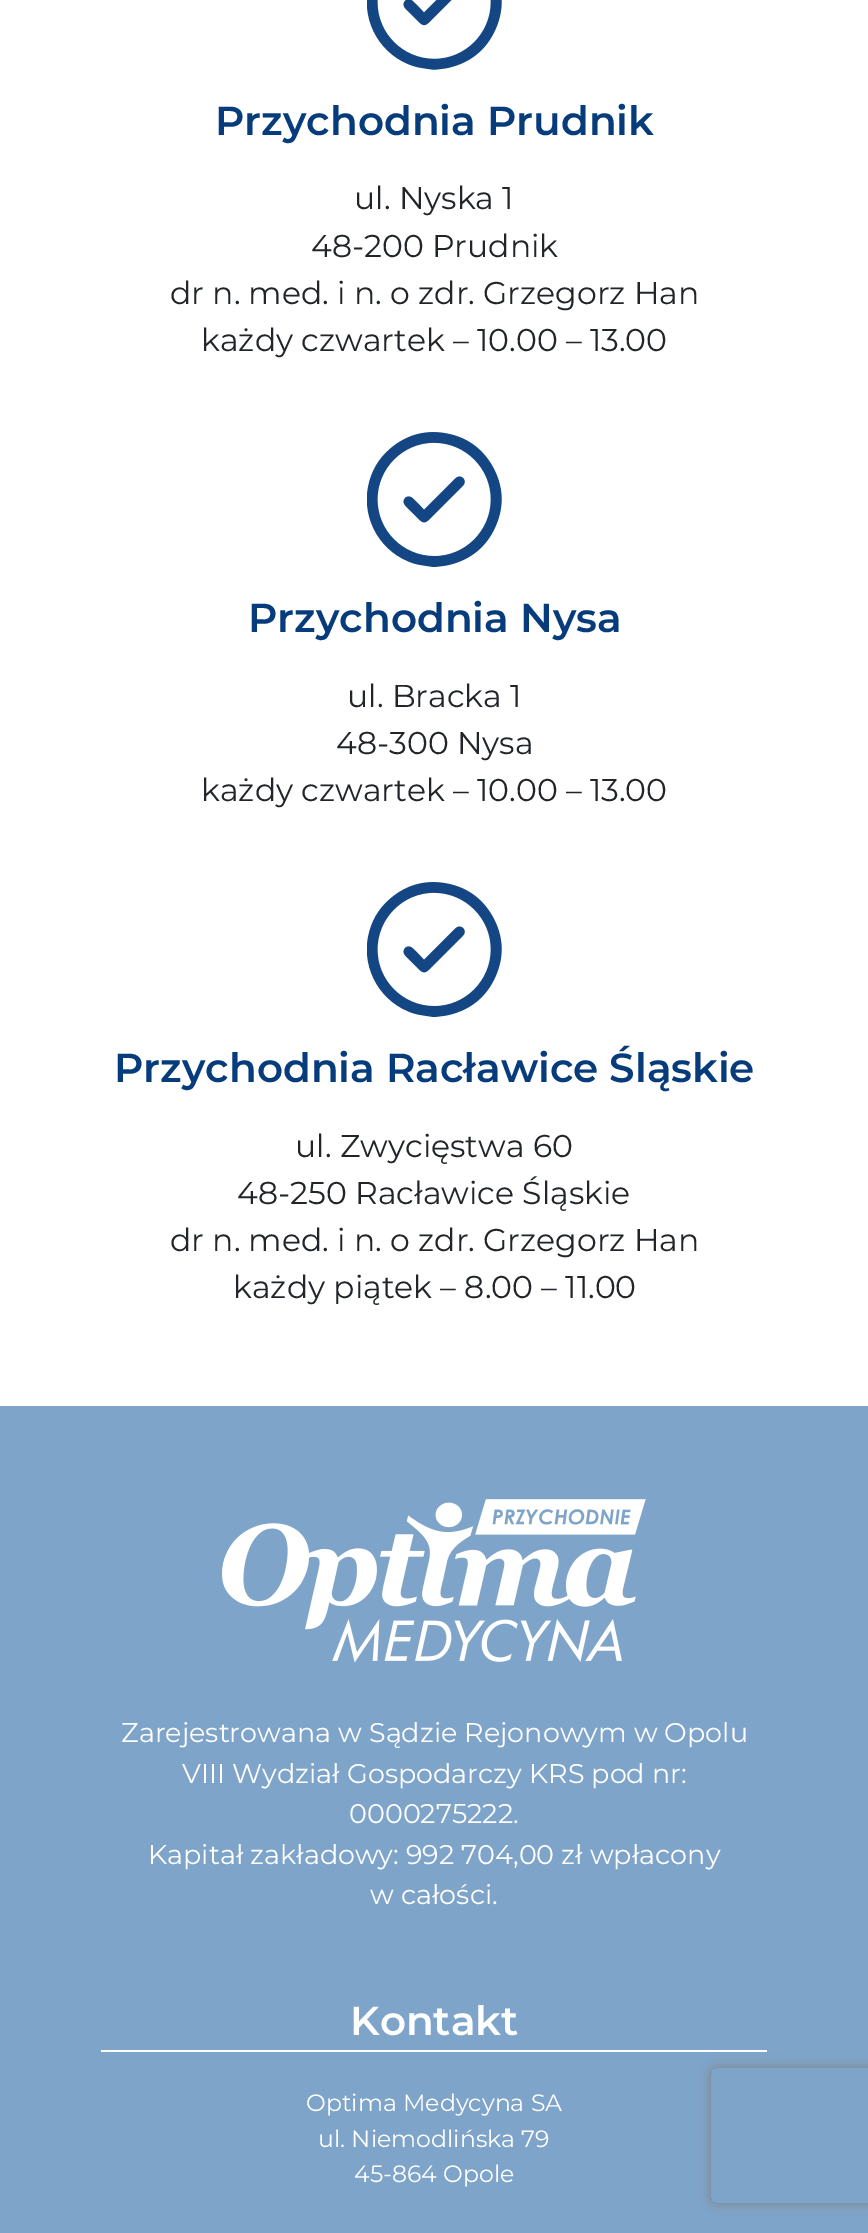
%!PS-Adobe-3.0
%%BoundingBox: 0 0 868 2233
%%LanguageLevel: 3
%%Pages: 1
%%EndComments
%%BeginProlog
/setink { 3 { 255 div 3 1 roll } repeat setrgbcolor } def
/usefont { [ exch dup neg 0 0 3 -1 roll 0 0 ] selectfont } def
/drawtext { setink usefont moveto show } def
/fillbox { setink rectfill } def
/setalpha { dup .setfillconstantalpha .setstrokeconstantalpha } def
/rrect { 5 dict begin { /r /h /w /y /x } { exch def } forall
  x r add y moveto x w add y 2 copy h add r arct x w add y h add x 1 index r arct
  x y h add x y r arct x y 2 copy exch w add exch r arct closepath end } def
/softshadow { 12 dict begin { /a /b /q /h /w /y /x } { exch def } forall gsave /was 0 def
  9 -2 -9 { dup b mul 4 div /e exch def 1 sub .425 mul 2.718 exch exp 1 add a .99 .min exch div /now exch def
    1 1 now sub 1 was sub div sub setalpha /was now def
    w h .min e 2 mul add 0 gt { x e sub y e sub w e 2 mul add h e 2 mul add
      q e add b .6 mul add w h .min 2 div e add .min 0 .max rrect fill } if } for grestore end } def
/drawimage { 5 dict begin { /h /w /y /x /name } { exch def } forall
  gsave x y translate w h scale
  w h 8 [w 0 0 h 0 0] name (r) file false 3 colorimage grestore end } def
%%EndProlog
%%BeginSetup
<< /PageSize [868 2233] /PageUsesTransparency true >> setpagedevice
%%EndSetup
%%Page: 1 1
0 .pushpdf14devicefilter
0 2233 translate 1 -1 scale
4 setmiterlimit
0 0 868 2233 255 255 255 fillbox
(assets/img1.rgb) 367 0 135 70 drawimage
(Przychodnia Prudnik) 215 135 /Montserrat-SemiBold 40.5 6 60 124 drawtext
(ul. Nyska 1) 354 209 /Montserrat-Regular 31.5 33 37 41 drawtext
(48-200 Prudnik) 311 257 /Montserrat-Regular 31.5 33 37 41 drawtext
(dr n. med. i n. o zdr. Grzegorz Han) 170 304 /Montserrat-Regular 31.5 33 37 41 drawtext
(każdy czwartek – 10.00 – 13.00) 201 351 /Montserrat-Regular 31.5 33 37 41 drawtext
(assets/img2.rgb) 367 432 135 135 drawimage
(Przychodnia Nysa) 248 632 /Montserrat-SemiBold 40.5 6 60 124 drawtext
(ul. Bracka 1) 347 707 /Montserrat-Regular 31.5 33 37 41 drawtext
(48-300 Nysa) 336 754 /Montserrat-Regular 31.5 33 37 41 drawtext
(każdy czwartek – 10.00 – 13.00) 201 801 /Montserrat-Regular 31.5 33 37 41 drawtext
(assets/img2.rgb) 367 882 135 135 drawimage
(Przychodnia Racławice Śląskie) 114 1082 /Montserrat-SemiBold 40.5 6 60 124 drawtext
(ul. Zwycięstwa 60) 295 1157 /Montserrat-Regular 31.5 33 37 41 drawtext
(48-250 Racławice Śląskie) 237 1204 /Montserrat-Regular 31.5 33 37 41 drawtext
(dr n. med. i n. o zdr. Grzegorz Han) 170 1251 /Montserrat-Regular 31.5 33 37 41 drawtext
(każdy piątek – 8.00 – 11.00) 233 1298 /Montserrat-Regular 31.5 33 37 41 drawtext
0 1406 868 827 127 164 201 fillbox
(assets/img3.rgb) 222 1499 424 164 drawimage
(Zarejestrowana w Sądzie Rejonowym w Opolu) 121 1742 /Montserrat-Regular 27 255 255 255 drawtext
(VIII Wydział Gospodarczy KRS pod nr:) 182 1783 /Montserrat-Regular 27 255 255 255 drawtext
(0000275222.) 349 1823 /Montserrat-Regular 27 255 255 255 drawtext
(Kapitał zakładowy: 992 704,00 zł wpłacony) 148 1864 /Montserrat-Regular 27 255 255 255 drawtext
(w całości.) 370 1904 /Montserrat-Regular 27 255 255 255 drawtext
101 2050 666 2 255 255 255 fillbox
(Kontakt) 350 2035 /Montserrat-SemiBold 40.5 255 255 255 drawtext
(Optima Medycyna SA) 306 2111 /Montserrat-Regular 23.6 255 255 255 drawtext
(ul. Niemodlińska 79) 318 2147 /Montserrat-Regular 23.6 255 255 255 drawtext
(45-864 Opole) 354 2182 /Montserrat-Regular 23.6 255 255 255 drawtext
gsave
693 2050 moveto 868 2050 lineto 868 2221 lineto 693 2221 lineto closepath 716 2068 moveto 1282 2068 lineto 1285 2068 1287 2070 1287 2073 curveto 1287 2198 lineto 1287 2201 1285 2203 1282 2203 curveto 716 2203 lineto 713 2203 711 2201 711 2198 curveto 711 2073 lineto 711 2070 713 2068 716 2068 curveto closepath eoclip newpath
128 128 128 setink
711 2068 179 135 5 5.5 1 softshadow
grestore
.poppdf14devicefilter showpage
%%EOF
